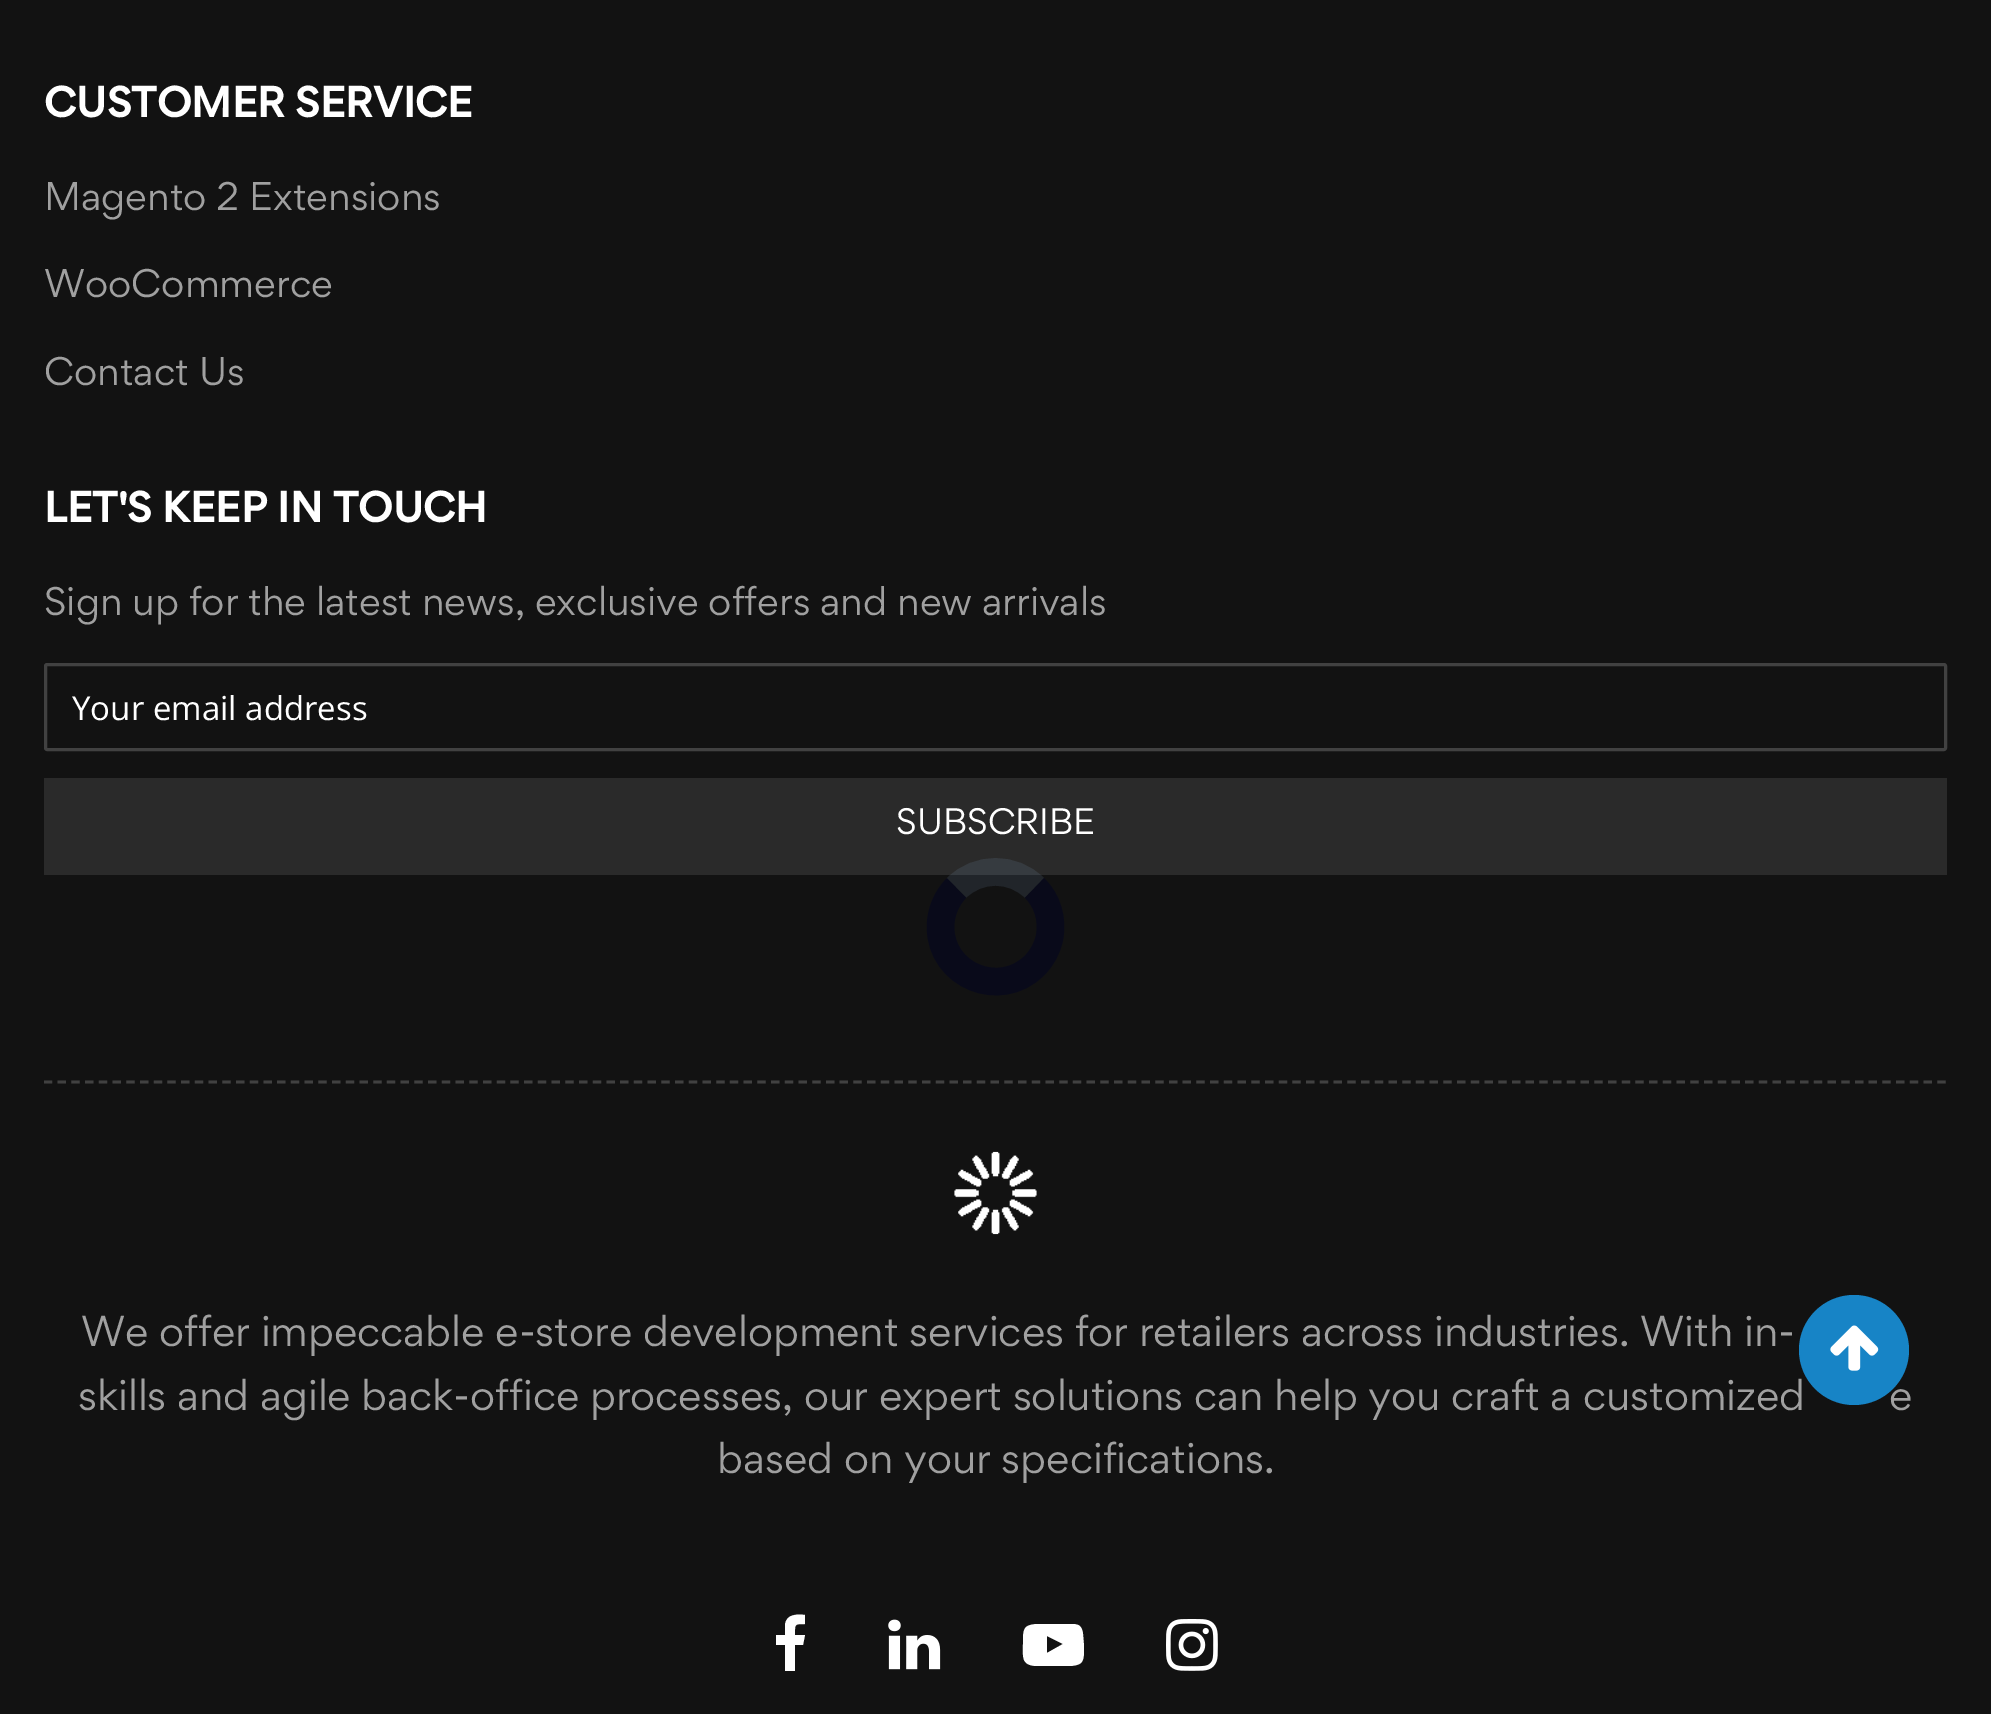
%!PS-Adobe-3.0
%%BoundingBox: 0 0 1991 1714
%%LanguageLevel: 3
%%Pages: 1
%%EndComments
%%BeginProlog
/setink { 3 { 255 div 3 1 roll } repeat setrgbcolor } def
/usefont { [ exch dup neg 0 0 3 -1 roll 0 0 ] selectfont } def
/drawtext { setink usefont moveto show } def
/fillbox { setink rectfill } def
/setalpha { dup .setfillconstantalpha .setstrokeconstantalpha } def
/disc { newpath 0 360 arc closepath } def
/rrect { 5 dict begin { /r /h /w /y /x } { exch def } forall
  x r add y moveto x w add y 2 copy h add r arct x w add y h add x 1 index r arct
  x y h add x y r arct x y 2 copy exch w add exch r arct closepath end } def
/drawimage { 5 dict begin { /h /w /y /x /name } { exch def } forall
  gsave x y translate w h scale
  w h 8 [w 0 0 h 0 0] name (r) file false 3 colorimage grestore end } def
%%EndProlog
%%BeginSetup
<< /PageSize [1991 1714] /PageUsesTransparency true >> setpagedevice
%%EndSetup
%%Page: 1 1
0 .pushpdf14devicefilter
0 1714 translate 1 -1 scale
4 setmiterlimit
0 0 1991 1714 18 18 18 fillbox
65 65 65 setink
2.8 setlinewidth
[8.25 5.47] 0 setdash
44 1082 moveto 1947 1082 lineto stroke
(CUSTOMER SERVICE) 44 117 /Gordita-Bold 38.5 255 255 255 drawtext
(Magento 2 Extensions) 44 210 /Gordita-Regular 35.75 160 160 160 drawtext
(WooCommerce) 44 297 /Gordita-Regular 35.75 160 160 160 drawtext
(Contact Us) 44 385 /Gordita-Regular 35.75 160 160 160 drawtext
(LET'S KEEP IN TOUCH) 44 522 /Gordita-Bold 38.5 255 255 255 drawtext
/Gordita-Regular 35.75 usefont
160 160 160 setink
44 615 moveto -0.1 0 32 (Sign up for the latest news, exclusive offers and new arrivals) widthshow
65 65 65 setink
3 setlinewidth
[] 0 setdash
45.5 664.5 1900 85 1.5 rrect stroke
(Your email address) 72 720 /OpenSans-Regular 33 255 255 255 drawtext
44 778 1903 97 42 42 42 fillbox
(SUBSCRIBE) 896 834 /Gordita-Regular 33 255 255 255 drawtext
(assets/img1.rgb) 954 1151 83 84 drawimage
(We offer impeccable e-store development services for retailers across industries. With in-) 81 1346 /Gordita-Regular 38.5 160 160 160 drawtext
(skills and agile back-office processes, our expert solutions can help you craft a customized) 78 1410 /Gordita-Regular 38.5 160 160 160 drawtext
(e) 1889 1410 /Gordita-Regular 38.5 160 160 160 drawtext
(based on your specifications.) 717 1473 /Gordita-Regular 38.5 160 160 160 drawtext
255 255 255 setink
805 1615 moveto 805 1624 lineto 794 1624 795 1624 795 1635 curveto 805 1635 lineto 803 1645 lineto 795 1645 lineto 795 1671 lineto 785 1671 lineto 785 1645 lineto 776 1645 lineto 776 1635 lineto 785 1635 lineto 785 1625 lineto 786 1614 797 1614 805 1615 curveto closepath fill
(assets/img2.rgb) 888 1619 53 51 drawimage
1047 1653 moveto 1063 1644 lineto 1047 1636 lineto closepath 1053 1624 moveto 1071 1624 lineto 1078 1624 1082 1625 1083 1634 curveto 1084 1646 lineto 1084 1661 1084 1665 1070 1666 curveto 1053 1666 lineto 1036 1666 lineto 1021 1665 1023 1657 1023 1644 curveto 1023 1629 1023 1625 1037 1624 curveto closepath fill
(assets/img3.rgb) 1166 1619 52 52 drawimage
23 132 198 setink
1854 1350 55 disc fill
(assets/img4.rgb) 1830 1325 49 46 drawimage
0.1 setalpha
161 208 255 setink
27.5 setlinewidth
956.5 888 moveto 978 866.5 1013 866.5 1034.5 888 curveto stroke
1 setalpha
9 10 26 setink
1034.5 888 moveto 1047.5 900.5 1053 919.5 1049.5 937.5 curveto 1047.5 948 1042 958 1034.5 965.5 curveto 1000 1000 940.5 975.5 940.5 927 curveto 940.5 912.5 946.5 898 956.5 888 curveto stroke
.poppdf14devicefilter showpage
%%EOF
